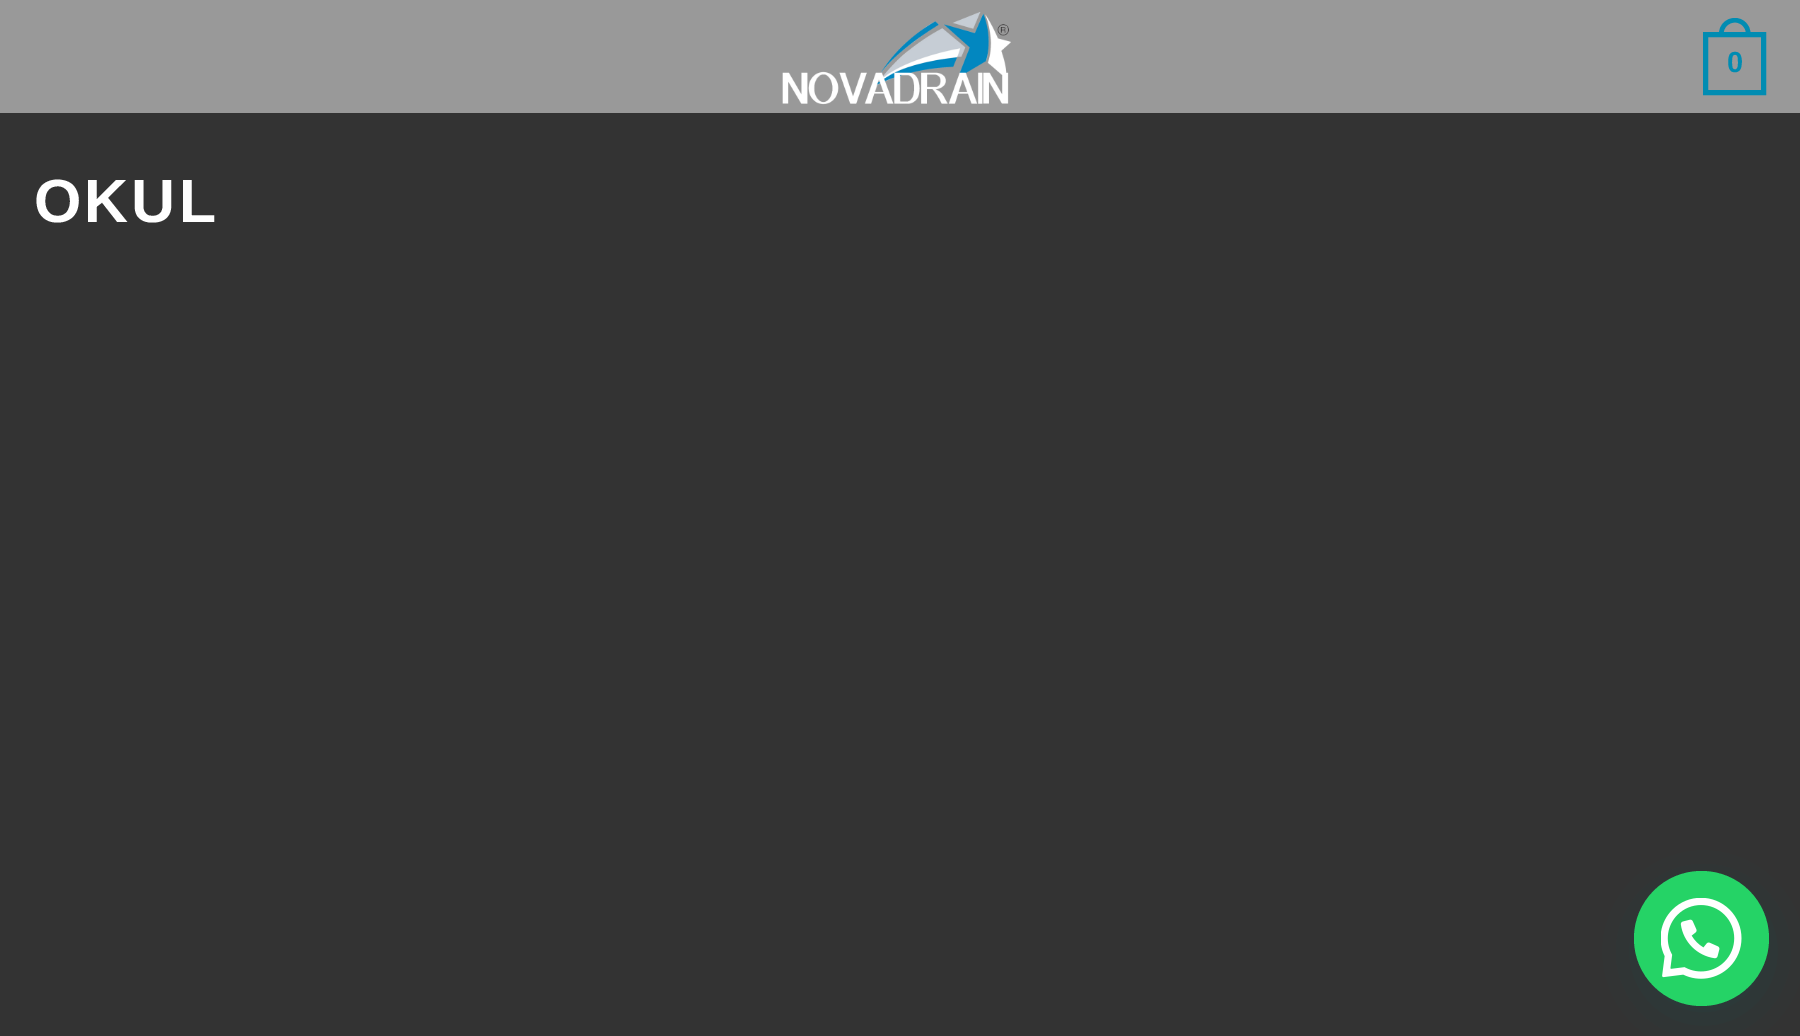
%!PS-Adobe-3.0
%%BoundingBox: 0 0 1800 1036
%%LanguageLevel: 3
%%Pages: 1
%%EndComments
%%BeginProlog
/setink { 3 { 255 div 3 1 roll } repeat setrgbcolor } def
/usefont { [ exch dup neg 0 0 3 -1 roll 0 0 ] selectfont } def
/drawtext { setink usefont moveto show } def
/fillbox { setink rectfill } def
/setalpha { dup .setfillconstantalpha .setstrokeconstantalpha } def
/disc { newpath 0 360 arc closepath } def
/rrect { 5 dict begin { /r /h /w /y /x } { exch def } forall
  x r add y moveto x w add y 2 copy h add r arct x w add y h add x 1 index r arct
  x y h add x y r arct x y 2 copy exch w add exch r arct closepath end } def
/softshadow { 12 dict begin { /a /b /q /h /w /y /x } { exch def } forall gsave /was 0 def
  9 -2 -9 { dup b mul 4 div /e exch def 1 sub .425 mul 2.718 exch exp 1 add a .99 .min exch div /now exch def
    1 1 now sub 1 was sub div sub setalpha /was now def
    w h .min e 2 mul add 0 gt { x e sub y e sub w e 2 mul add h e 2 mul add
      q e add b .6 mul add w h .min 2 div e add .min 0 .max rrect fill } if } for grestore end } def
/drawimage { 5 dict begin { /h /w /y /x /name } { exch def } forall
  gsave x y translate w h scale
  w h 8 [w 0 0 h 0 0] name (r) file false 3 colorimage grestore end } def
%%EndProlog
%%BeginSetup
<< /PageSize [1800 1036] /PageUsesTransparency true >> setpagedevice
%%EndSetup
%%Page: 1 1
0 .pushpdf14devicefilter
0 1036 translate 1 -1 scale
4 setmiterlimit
0 0 1800 1036 51 51 51 fillbox
0 0 1800 113 153 153 153 fillbox
(assets/img1.rgb) 782 12 229 93 drawimage
0 140 178 setink
5 setlinewidth
1705.5 34.5 58 58 rectstroke
1735 18 moveto 1743.5 18 1750.5 25 1750.5 34 curveto 1750.5 36 lineto 1719 36 lineto 1719 34 lineto 1719 25 1726 18 1735 18 curveto closepath 1735 22.5 moveto 1741 22.5 1746 27.5 1746 34 curveto 1746 36 lineto 1723.5 36 lineto 1723.5 34 lineto 1723.5 27.5 1728.5 22.5 1735 22.5 curveto closepath eofill
(0) 1727 72 /LiberationSans-Bold 29 0 140 178 drawtext
/LiberationSans-Bold 61 usefont
255 255 255 setink
34 222 moveto 3 0 (OKUL) ashow
7 94 84 setink
1636 884 135 135 67.5 27 0.24 softshadow
37 211 102 setink
1701.5 938.5 67.5 disc fill
(assets/img2.rgb) 1661 898 81 81 drawimage
.poppdf14devicefilter showpage
%%EOF
